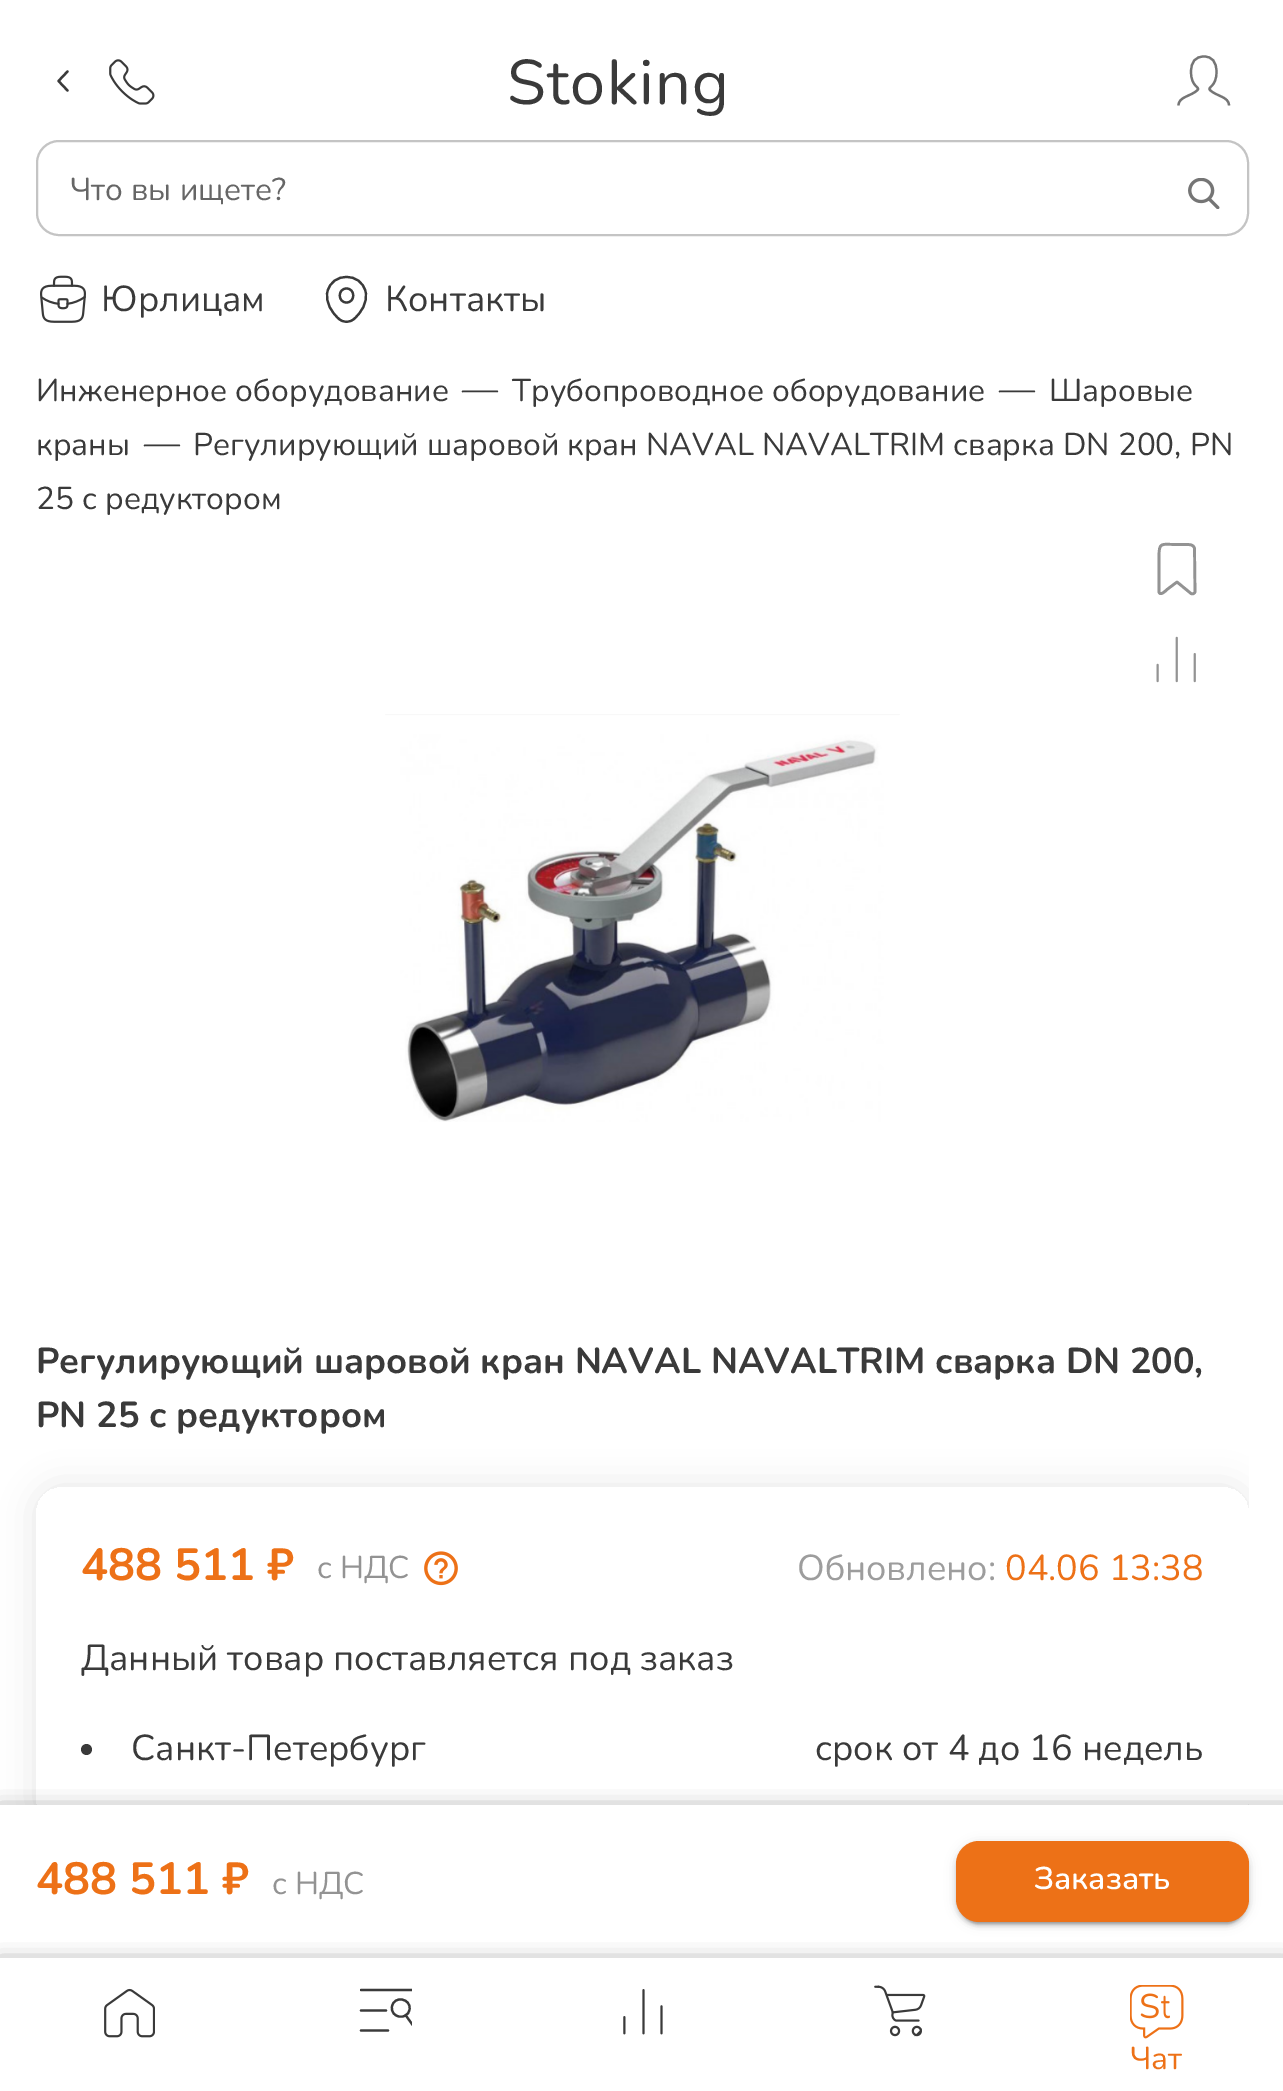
%!PS-Adobe-3.0
%%BoundingBox: 0 0 1283 2091
%%LanguageLevel: 3
%%Pages: 1
%%EndComments
%%BeginProlog
/setink { 3 { 255 div 3 1 roll } repeat setrgbcolor } def
/usefont { [ exch dup neg 0 0 3 -1 roll 0 0 ] selectfont } def
/drawtext { setink usefont moveto show } def
/fillbox { setink rectfill } def
/setalpha { dup .setfillconstantalpha .setstrokeconstantalpha } def
/disc { newpath 0 360 arc closepath } def
/rrect { 5 dict begin { /r /h /w /y /x } { exch def } forall
  x r add y moveto x w add y 2 copy h add r arct x w add y h add x 1 index r arct
  x y h add x y r arct x y 2 copy exch w add exch r arct closepath end } def
/softshadow { 12 dict begin { /a /b /q /h /w /y /x } { exch def } forall gsave /was 0 def
  9 -2 -9 { dup b mul 4 div /e exch def 1 sub .425 mul 2.718 exch exp 1 add a .99 .min exch div /now exch def
    1 1 now sub 1 was sub div sub setalpha /was now def
    w h .min e 2 mul add 0 gt { x e sub y e sub w e 2 mul add h e 2 mul add
      q e add b .6 mul add w h .min 2 div e add .min 0 .max rrect fill } if } for grestore end } def
/drawimage { 5 dict begin { /h /w /y /x /name } { exch def } forall
  gsave x y translate w h scale
  w h 8 [w 0 0 h 0 0] name (r) file false 3 colorimage grestore end } def
%%EndProlog
%%BeginSetup
<< /PageSize [1283 2091] /PageUsesTransparency true >> setpagedevice
%%EndSetup
%%Page: 1 1
0 .pushpdf14devicefilter
0 2091 translate 1 -1 scale
4 setmiterlimit
0 0 1283 2091 255 255 255 fillbox
58 58 58 setink
2.3 setlinewidth
1 setlinecap
1 setlinejoin
67.5 90.5 moveto 58.5 81 lineto 67.5 71.5 lineto stroke
(assets/img1.rgb) 109 59 46 46 drawimage
/Nunito-Regular 63 usefont
507 104 moveto 1.25 0 (Stoking) ashow
117 117 117 setink
2.2 setlinewidth
0 setlinecap
0 setlinejoin
1178.5 105.5 moveto 1178.5 96.5 1191 96.5 1197.5 90 curveto 1200.5 87 1191 87 1191 72 curveto 1191 61.5 1195.5 56.5 1204 56.5 curveto 1212 56.5 1216.5 61.5 1216.5 72 curveto 1216.5 87 1207 87 1210 90 curveto 1216.5 96.5 1229 96.5 1229 105.5 curveto stroke
196 196 196 setink
2 setlinewidth
37 141 1211 94 22 rrect stroke
(assets/img2.rgb) 1188 178 32 31 drawimage
(Что вы ищете?) 70 200 /Nunito-Regular 31.5 102 102 102 drawtext
(assets/img3.rgb) 40 275 46 48 drawimage
(Юрлицам) 101 311 /Nunito-Regular 36 58 58 58 drawtext
2.2 setlinewidth
1 setlinecap
1 setlinejoin
346.5 302.5 moveto 355.5 302.5 355.5 288.5 346.5 288.5 curveto 337.5 288.5 337.5 302.5 346.5 302.5 curveto closepath 327.5 291.5 moveto 332 272 361 272 365.5 291.5 curveto 368 303 361 312.5 354.5 318.5 curveto 350 323 343 323 338.5 318.5 curveto 332 312.5 325 303 327.5 291.5 curveto closepath stroke
(Контакты) 385 311 /Nunito-Regular 36 58 58 58 drawtext
(Инженерное оборудование) 36 401 /Nunito-Regular 31.5 58 58 58 drawtext
(—) 462 401 /Nunito-Regular 36 58 58 58 drawtext
(Трубопроводное оборудование) 512 401 /Nunito-Regular 31.5 58 58 58 drawtext
(—) 999 401 /Nunito-Regular 36 58 58 58 drawtext
(Шаровые) 1049 401 /Nunito-Regular 31.5 58 58 58 drawtext
(краны) 36 455 /Nunito-Regular 31.5 58 58 58 drawtext
(—) 144 455 /Nunito-Regular 36 58 58 58 drawtext
(Регулирующий шаровой кран NAVAL NAVALTRIM сварка DN 200, PN) 193 455 /Nunito-Regular 31.5 58 58 58 drawtext
(25 с редуктором) 36 509 /Nunito-Regular 31.5 58 58 58 drawtext
(assets/img4.rgb) 385 714 515 408 drawimage
(Регулирующий шаровой кран NAVAL NAVALTRIM сварка DN 200,) 36 1373 /Nunito-Bold 36 58 58 58 drawtext
(PN 25 с редуктором) 36 1427 /Nunito-Bold 36 58 58 58 drawtext
gsave
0 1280 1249 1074 rectclip
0 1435 moveto 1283 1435 lineto 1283 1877 lineto 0 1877 lineto closepath 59 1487 moveto 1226 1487 lineto 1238.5 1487 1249 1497.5 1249 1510 curveto 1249 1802 lineto 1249 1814.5 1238.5 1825 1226 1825 curveto 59 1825 lineto 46.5 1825 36 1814.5 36 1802 curveto 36 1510 lineto 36 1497.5 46.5 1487 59 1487 curveto closepath eoclip newpath
77 77 77 setink
36 1487 1213 338 23 17 0.15 softshadow
grestore
(488 511 ₽) 81 1580 /Nunito-Bold 45 237 113 23 drawtext
(с НДС) 317 1578 /Nunito-Regular 31.5 147 147 147 drawtext
(assets/img5.rgb) 424 1551 34 35 drawimage
(Обновлено:) 797 1580 /Nunito-Regular 36 157 157 157 drawtext
(04.06 13:38) 1005 1580 /Nunito-Regular 36 237 113 23 drawtext
(Данный товар поставляется под заказ) 81 1670 /Nunito-Regular 36 58 58 58 drawtext
86.5 1749.5 5.5 disc fill
(Санкт-Петербург) 131 1760 /Nunito-Regular 36 58 58 58 drawtext
(срок от 4 до 16 недель) 815 1760 /Nunito-Regular 36 58 58 58 drawtext
147 147 147 setink
2.7 setlinewidth
1195 591.5 moveto 1195 593.5 1192.5 594.5 1191 593.5 curveto 1177 582 lineto 1167 589.5 lineto 1166 590.5 1160 596.5 1159 592 curveto 1159 557 lineto 1159 541.5 1161 544.5 1177 544.5 curveto 1185.5 544.5 lineto 1189 544.5 1193.5 544 1194.5 548.5 curveto closepath stroke
(assets/img6.rgb) 1156 636 40 47 drawimage
58 58 58 setink
0 1814 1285 153 0 11 1 softshadow
0 1805 1283 153 255 255 255 fillbox
(488 511 ₽) 36 1894 /Nunito-Bold 45 237 113 23 drawtext
(с НДС) 272 1894 /Nunito-Regular 31.5 147 147 147 drawtext
0 0 0 setink
956 1843 293 81 23 5.5 0.12 softshadow
956 1845 293 81 23 2 0.14 softshadow
961 1852 283 72 18 1 0.2 softshadow
237 113 23 setink
956 1841 293 81 23 rrect fill
(Заказать) 1034 1889 /Nunito-SemiBold 31.5 255 255 255 drawtext
58 58 58 setink
0 1967 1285 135 0 11 1 softshadow
0 1958 1283 133 255 255 255 fillbox
(assets/img7.rgb) 104 1988 51 50 drawimage
gsave
360 1987 52 52 rectclip
58 58 58 setink
2.2 setlinewidth
0 setlinejoin
405.5 2015 moveto 414.5 2027.5 lineto 409.5 2009.5 moveto 407.5 2021 390 2018 392 2006.5 curveto 394 1995 411.5 1998.5 409.5 2009.5 curveto closepath stroke
grestore
58 58 58 setink
2.2 setlinewidth
0 setlinejoin
361 2010.5 moveto 386 2010.5 lineto 361 2030.5 moveto 388 2030.5 lineto stroke
gsave
360 1987 52 52 rectclip
361 1990 moveto 413 1990 lineto stroke
grestore
(assets/img8.rgb) 623 1989 40 46 drawimage
(assets/img9.rgb) 874 1985 52 52 drawimage
(assets/img10.rgb) 1130 1985 54 54 drawimage
(Чат) 1130 2069 /Nunito-Regular 31.5 237 113 23 drawtext
.poppdf14devicefilter showpage
%%EOF
